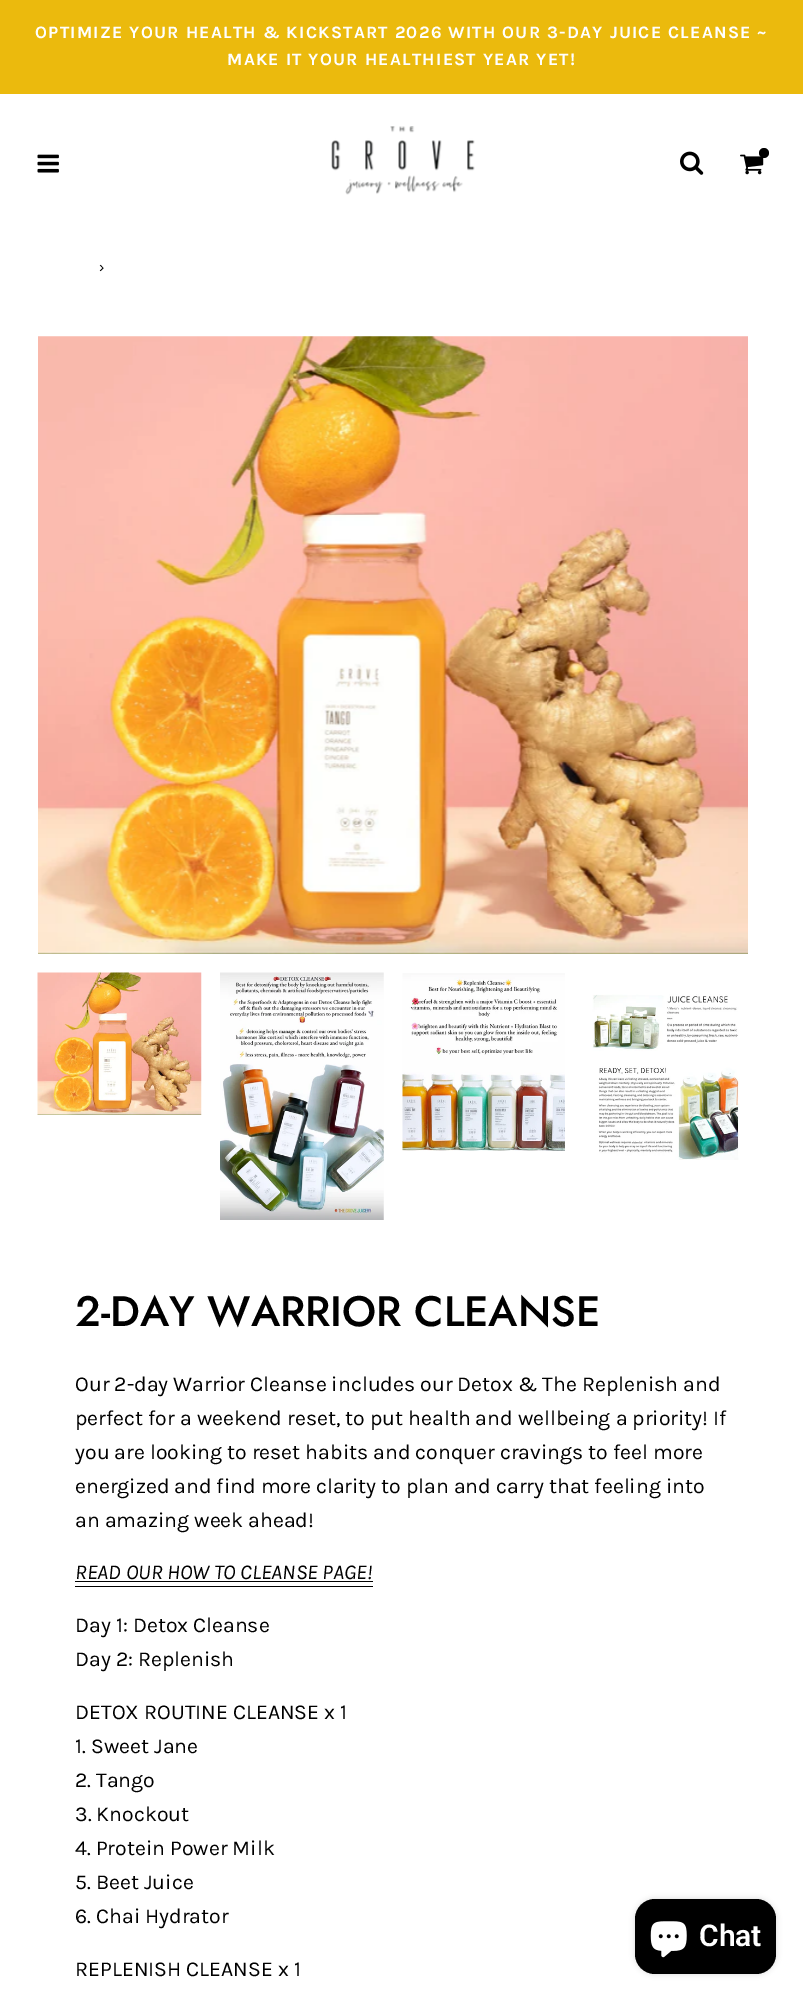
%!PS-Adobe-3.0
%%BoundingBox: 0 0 803 1999
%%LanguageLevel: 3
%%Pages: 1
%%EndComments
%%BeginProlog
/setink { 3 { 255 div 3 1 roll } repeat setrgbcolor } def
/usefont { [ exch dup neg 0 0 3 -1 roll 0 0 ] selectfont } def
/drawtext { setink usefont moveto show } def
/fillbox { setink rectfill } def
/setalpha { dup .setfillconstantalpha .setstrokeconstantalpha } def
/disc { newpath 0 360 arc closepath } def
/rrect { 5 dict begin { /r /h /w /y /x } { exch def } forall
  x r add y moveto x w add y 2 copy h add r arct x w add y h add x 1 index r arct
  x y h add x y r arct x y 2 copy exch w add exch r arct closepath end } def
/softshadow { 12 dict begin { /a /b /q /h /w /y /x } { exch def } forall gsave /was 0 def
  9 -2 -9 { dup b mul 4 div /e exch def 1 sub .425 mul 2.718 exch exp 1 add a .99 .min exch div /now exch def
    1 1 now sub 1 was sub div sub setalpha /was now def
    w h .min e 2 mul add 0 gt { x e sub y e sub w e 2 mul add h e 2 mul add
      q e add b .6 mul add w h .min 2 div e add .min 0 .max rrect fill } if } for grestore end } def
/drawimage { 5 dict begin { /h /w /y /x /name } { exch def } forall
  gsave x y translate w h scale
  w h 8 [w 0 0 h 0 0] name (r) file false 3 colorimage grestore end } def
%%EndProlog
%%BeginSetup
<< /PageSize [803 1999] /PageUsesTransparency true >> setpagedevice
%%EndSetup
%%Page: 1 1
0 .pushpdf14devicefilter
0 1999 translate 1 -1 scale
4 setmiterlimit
0 0 803 1999 255 255 255 fillbox
0 0 803 94 235 186 13 fillbox
/Karla-Bold 17.5 usefont
255 255 255 setink
35 38 moveto 1.25 0 (OPTIMIZE YOUR HEALTH & KICKSTART 2026 WITH OUR 3-DAY JUICE CLEANSE ~) ashow
227 65 moveto 1.25 0 (MAKE IT YOUR HEALTHIEST YEAR YET!) ashow
(assets/img1.rgb) 37 154 22 19 drawimage
(assets/img2.rgb) 331 126 144 69 drawimage
(assets/img3.rgb) 680 151 24 24 drawimage
(assets/img4.rgb) 740 154 24 21 drawimage
0 0 0 setink
764 153 5 disc fill
(›) 99 272 /Karla-Regular 15 0 0 0 drawtext
(assets/img5.rgb) 38 336 710 618 drawimage
(assets/img6.rgb) 37 972 165 143 drawimage
(assets/img7.rgb) 220 972 164 248 drawimage
(assets/img8.rgb) 402 973 163 178 drawimage
(assets/img9.rgb) 592 994 148 166 drawimage
(2-DAY WARRIOR CLEANSE) 75 1326 /Jost-Medium 42.5 0 0 0 drawtext
(Our 2-day Warrior Cleanse includes our Detox & The Replenish and) 75 1391 /Karla-Regular 21.25 0 0 0 drawtext
(perfect for a weekend reset, to put health and wellbeing a priority! If) 75 1425 /Karla-Regular 21.25 0 0 0 drawtext
(you are looking to reset habits and conquer cravings to feel more) 75 1459 /Karla-Regular 21.25 0 0 0 drawtext
(energized and find more clarity to plan and carry that feeling into) 75 1493 /Karla-Regular 21.25 0 0 0 drawtext
(an amazing week ahead!) 75 1527 /Karla-Regular 21.25 0 0 0 drawtext
(READ OUR HOW TO CLEANSE PAGE!) 75 1579 /Karla-Italic 21.25 0 0 0 drawtext
75 1586 298 1 0 0 0 fillbox
75 1581 298 1 0 0 0 fillbox
(Day 1: Detox Cleanse) 75 1632 /Karla-Regular 21.25 0 0 0 drawtext
(Day 2: Replenish) 75 1666 /Karla-Regular 21.25 0 0 0 drawtext
(DETOX ROUTINE CLEANSE x 1) 75 1719 /Karla-Regular 21.25 0 0 0 drawtext
(1. Sweet Jane) 75 1753 /Karla-Regular 21.25 0 0 0 drawtext
(2. Tango) 75 1787 /Karla-Regular 21.25 0 0 0 drawtext
(3. Knockout) 75 1821 /Karla-Regular 21.25 0 0 0 drawtext
(4. Protein Power Milk) 75 1855 /Karla-Regular 21.25 0 0 0 drawtext
(5. Beet Juice) 75 1889 /Karla-Regular 21.25 0 0 0 drawtext
(6. Chai Hydrator) 75 1923 /Karla-Regular 21.25 0 0 0 drawtext
(REPLENISH CLEANSE x 1) 75 1976 /Karla-Regular 21.25 0 0 0 drawtext
635 1899 141 75 20 3 0.15 softshadow
635 1899 141 75 20 rrect fill
(assets/img10.rgb) 650 1921 37 37 drawimage
(Chat) 699 1946 /Roboto-SemiBold 30 255 255 255 drawtext
.poppdf14devicefilter showpage
%%EOF
